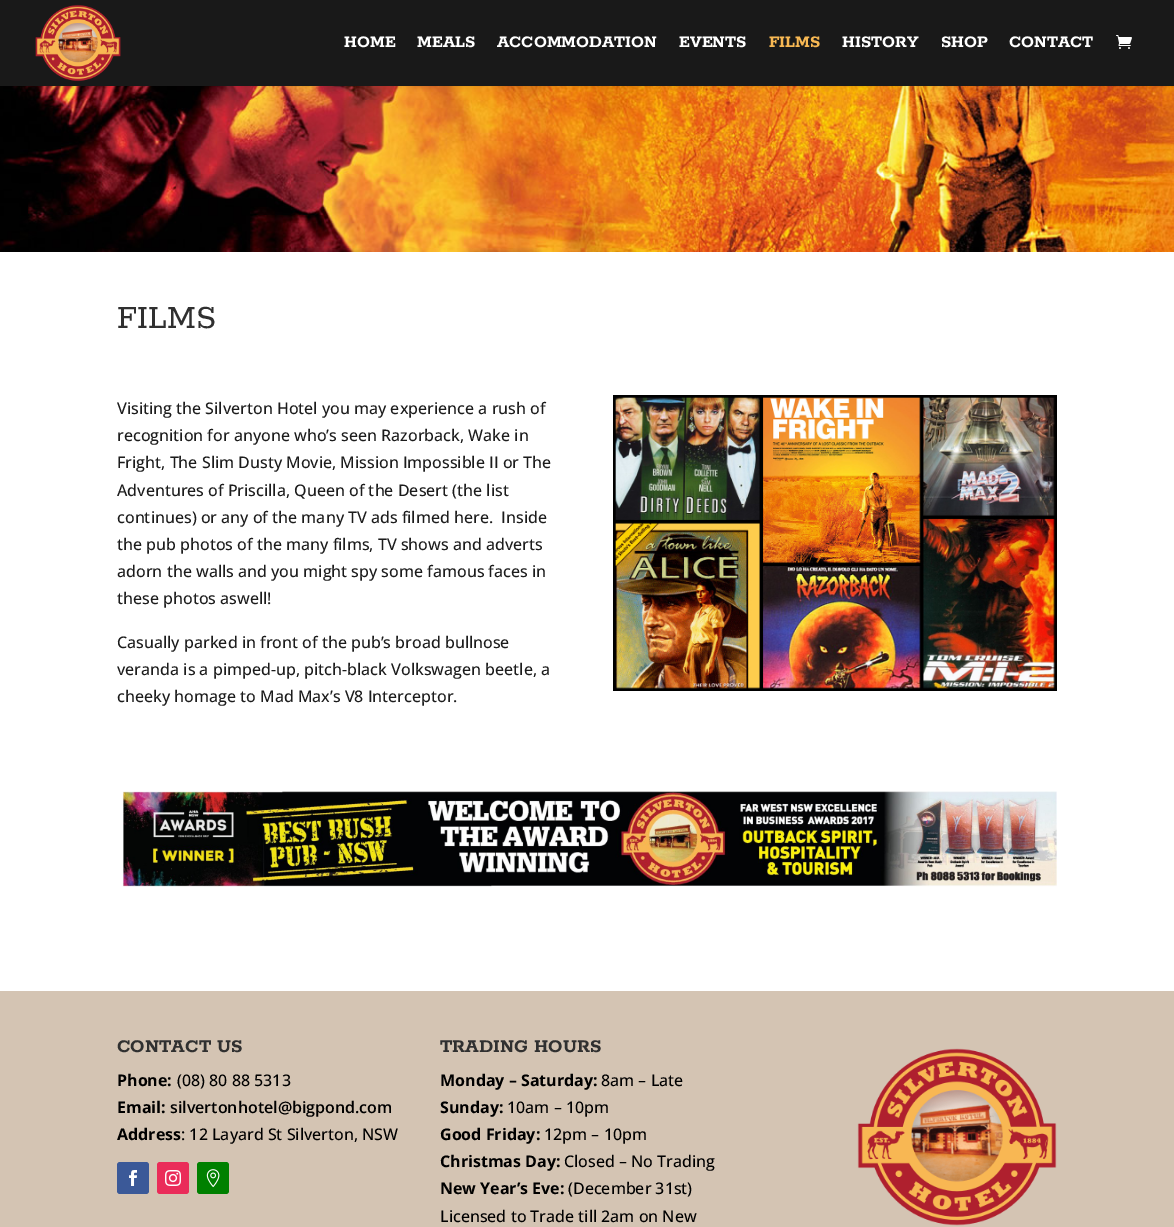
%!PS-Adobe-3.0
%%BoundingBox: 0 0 1174 1227
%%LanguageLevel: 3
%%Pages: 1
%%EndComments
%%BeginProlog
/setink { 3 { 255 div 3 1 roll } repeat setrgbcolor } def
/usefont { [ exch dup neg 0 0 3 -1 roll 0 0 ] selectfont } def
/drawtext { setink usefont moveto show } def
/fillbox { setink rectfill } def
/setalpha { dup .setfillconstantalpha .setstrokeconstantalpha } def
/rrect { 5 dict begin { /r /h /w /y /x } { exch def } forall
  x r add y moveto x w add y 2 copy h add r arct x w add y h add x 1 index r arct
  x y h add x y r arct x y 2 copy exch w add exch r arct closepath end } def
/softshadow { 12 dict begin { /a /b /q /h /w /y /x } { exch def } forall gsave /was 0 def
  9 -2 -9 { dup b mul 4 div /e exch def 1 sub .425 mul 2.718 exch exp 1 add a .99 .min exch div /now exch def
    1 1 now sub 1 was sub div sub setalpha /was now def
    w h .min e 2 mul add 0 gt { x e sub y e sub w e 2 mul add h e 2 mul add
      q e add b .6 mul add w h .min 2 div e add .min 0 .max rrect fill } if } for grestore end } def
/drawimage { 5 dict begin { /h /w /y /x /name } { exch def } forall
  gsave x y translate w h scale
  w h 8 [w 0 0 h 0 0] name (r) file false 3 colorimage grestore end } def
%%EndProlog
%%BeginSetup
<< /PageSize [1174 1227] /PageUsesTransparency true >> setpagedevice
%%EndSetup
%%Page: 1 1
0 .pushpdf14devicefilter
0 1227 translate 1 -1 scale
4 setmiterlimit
0 0 1174 1227 255 255 255 fillbox
(assets/img3.rgb) 0 86 1174 166 drawimage
0 0 0 setink
0 0 1174 86 0 3.5 0.1 softshadow
0 0 1174 86 25 25 25 fillbox
(assets/img1.rgb) 35 4 86 78 drawimage
(HOME) 344 47 /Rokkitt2-SemiBold 18 255 255 255 drawtext
(MEALS) 417 47 /Rokkitt2-SemiBold 18 255 255 255 drawtext
(ACCOMMODATION) 497 47 /Rokkitt2-SemiBold 18 255 255 255 drawtext
(EVENTS) 679 47 /Rokkitt2-SemiBold 18 255 255 255 drawtext
(FILMS) 769 47 /Rokkitt2-SemiBold 18 247 184 83 drawtext
(HISTORY) 842 47 /Rokkitt2-SemiBold 18 255 255 255 drawtext
(SHOP) 941 47 /Rokkitt2-SemiBold 18 255 255 255 drawtext
(CONTACT) 1009 47 /Rokkitt2-SemiBold 18 255 255 255 drawtext
(assets/img2.rgb) 1116 35 16 14 drawimage
(FILMS) 117 328 /Rokkitt-SemiBold 36 48 48 48 drawtext
(Visiting the Silverton Hotel you may experience a rush of) 117 414 /OpenSans-Medium 16 28 28 28 drawtext
(recognition for anyone who’s seen Razorback, Wake in) 117 441 /OpenSans-Medium 16 28 28 28 drawtext
(Fright, The Slim Dusty Movie, Mission Impossible II or The) 117 468 /OpenSans-Medium 16 28 28 28 drawtext
(Adventures of Priscilla, Queen of the Desert \(the list) 117 496 /OpenSans-Medium 16 28 28 28 drawtext
(continues\) or any of the many TV ads filmed here.  Inside) 117 523 /OpenSans-Medium 16 28 28 28 drawtext
(the pub photos of the many films, TV shows and adverts) 117 550 /OpenSans-Medium 16 28 28 28 drawtext
(adorn the walls and you might spy some famous faces in) 117 577 /OpenSans-Medium 16 28 28 28 drawtext
(these photos aswell!) 117 604 /OpenSans-Medium 16 28 28 28 drawtext
(Casually parked in front of the pub’s broad bullnose) 117 648 /OpenSans-Medium 16 28 28 28 drawtext
(veranda is a pimped-up, pitch-black Volkswagen beetle, a) 117 675 /OpenSans-Medium 16 28 28 28 drawtext
(cheeky homage to Mad Max’s V8 Interceptor.) 117 702 /OpenSans-Medium 16 28 28 28 drawtext
(assets/img4.rgb) 613 395 444 296 drawimage
(assets/img5.rgb) 122 791 935 96 drawimage
0 991 1174 236 212 196 179 fillbox
(CONTACT US) 117 1052 /Rokkitt2-SemiBold 20 48 48 48 drawtext
(Phone:) 117 1086 /OpenSans-Bold 16 0 0 0 drawtext
(\(08\) 80 88 5313) 177 1086 /OpenSans-Medium 16 0 0 0 drawtext
(Email:) 117 1113 /OpenSans-Bold 16 0 0 0 drawtext
(silvertonhotel@bigpond.com) 170 1113 /OpenSans-SemiBold 16 0 0 0 drawtext
(Address) 117 1140 /OpenSans-Bold 16 0 0 0 drawtext
(: 12 Layard St Silverton, NSW) 181 1140 /OpenSans-Medium 16 0 0 0 drawtext
59 89 152 setink
117 1162 32 32 3 rrect fill
(assets/img6.rgb) 129 1170 8 16 drawimage
234 44 89 setink
157 1162 32 32 3 rrect fill
(assets/img7.rgb) 165 1170 16 16 drawimage
0 128 0 setink
197 1162 32 32 3 rrect fill
(assets/img8.rgb) 206 1169 14 19 drawimage
(TRADING HOURS) 440 1052 /Rokkitt2-SemiBold 20 48 48 48 drawtext
(Monday – Saturday:) 440 1086 /OpenSans-Bold 16 0 0 0 drawtext
(8am – Late) 601 1086 /OpenSans-Medium 16 0 0 0 drawtext
(Sunday:) 440 1113 /OpenSans-Bold 16 0 0 0 drawtext
(10am – 10pm) 507 1113 /OpenSans-Medium 16 0 0 0 drawtext
(Good Friday:) 440 1140 /OpenSans-Bold 16 0 0 0 drawtext
(12pm – 10pm) 544 1140 /OpenSans-Medium 16 0 0 0 drawtext
(Christmas Day:) 440 1167 /OpenSans-Bold 16 0 0 0 drawtext
(Closed – No Trading) 564 1167 /OpenSans-Medium 16 0 0 0 drawtext
(New Year’s Eve:) 440 1194 /OpenSans-Bold 16 0 0 0 drawtext
(\(December 31st\)) 568 1194 /OpenSans-Medium 16 0 0 0 drawtext
(Licensed to Trade till 2am on New) 440 1222 /OpenSans-Medium 16 0 0 0 drawtext
(assets/img9.rgb) 857 1048 200 178 drawimage
.poppdf14devicefilter showpage
%%EOF
